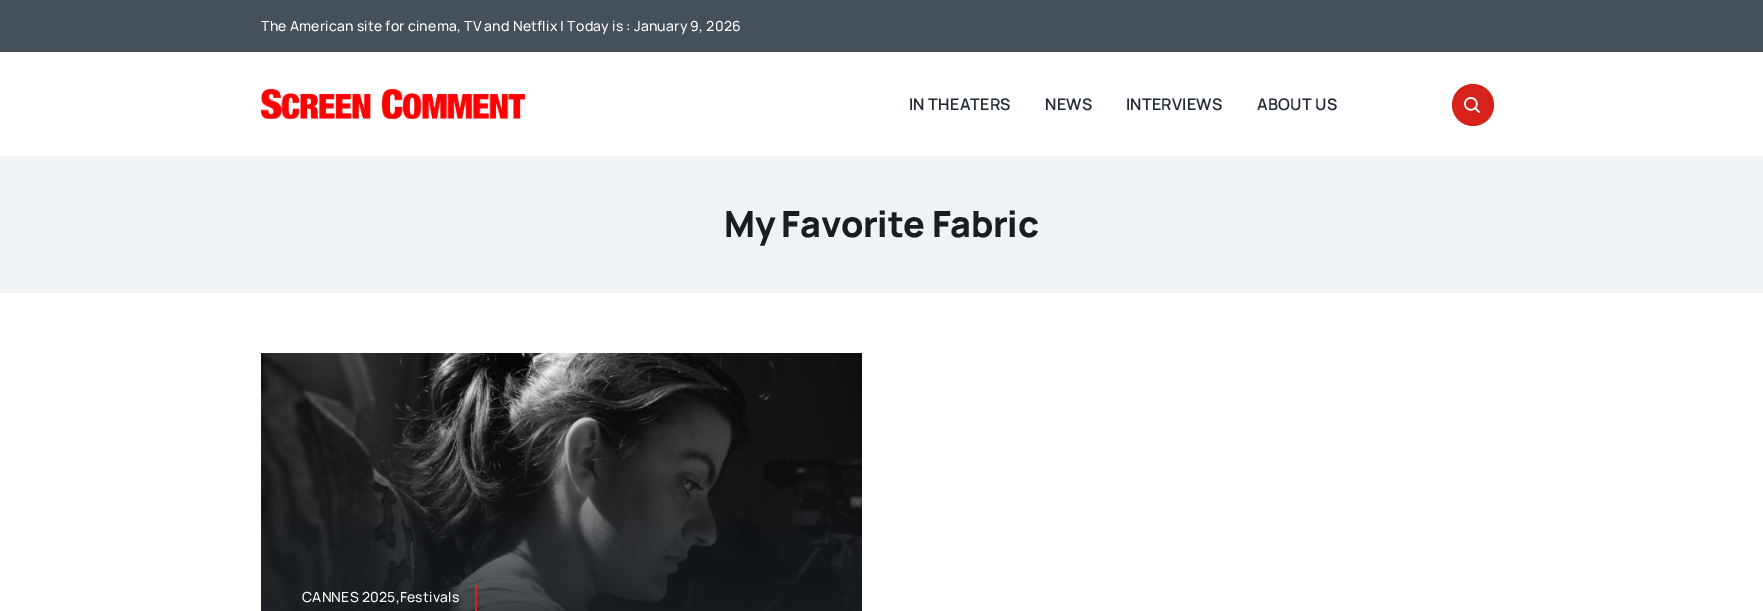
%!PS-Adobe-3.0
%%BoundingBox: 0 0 1763 611
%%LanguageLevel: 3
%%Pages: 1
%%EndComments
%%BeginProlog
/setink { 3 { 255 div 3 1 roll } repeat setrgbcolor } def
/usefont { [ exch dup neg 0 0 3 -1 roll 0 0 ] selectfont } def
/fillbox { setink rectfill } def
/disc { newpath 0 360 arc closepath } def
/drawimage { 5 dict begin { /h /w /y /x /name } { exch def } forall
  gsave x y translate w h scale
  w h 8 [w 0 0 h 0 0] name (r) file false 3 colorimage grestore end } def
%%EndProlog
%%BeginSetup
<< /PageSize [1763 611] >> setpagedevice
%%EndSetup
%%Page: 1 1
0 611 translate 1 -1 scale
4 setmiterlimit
0 0 1763 611 255 255 255 fillbox
0 0 1763 52 69 80 90 fillbox
/Manrope-Medium 14 usefont
255 255 255 setink
261 31 moveto 0.2 0 (The American site for cinema, TV and Netflix | Today is : January 9, 2026) ashow
(assets/img1.rgb) 261 89 264 30 drawimage
/Manrope-SemiBold 16 usefont
33 41 52 setink
909 110 moveto 0.25 0 (IN THEATERS) ashow
1045 110 moveto 0.25 0 (NEWS) ashow
1126 110 moveto 0.25 0 (INTERVIEWS) ashow
1257 110 moveto 0.25 0 (ABOUT US) ashow
214 34 27 setink
1473 105 21 disc fill
(assets/img2.rgb) 1464 97 16 16 drawimage
0 156 1763 137 239 243 245 fillbox
/Manrope-ExtraBold 36 usefont
25 29 33 setink
724 237 moveto -0.4 0 (My Favorite Fabric) ashow
(assets/img3.rgb) 261 353 601 258 drawimage
475 585 2 26 214 34 27 fillbox
/Manrope-Medium 14 usefont
255 255 255 setink
302 602 moveto 0.2 0 (CANNES 2025,Festivals) ashow
showpage
%%EOF
